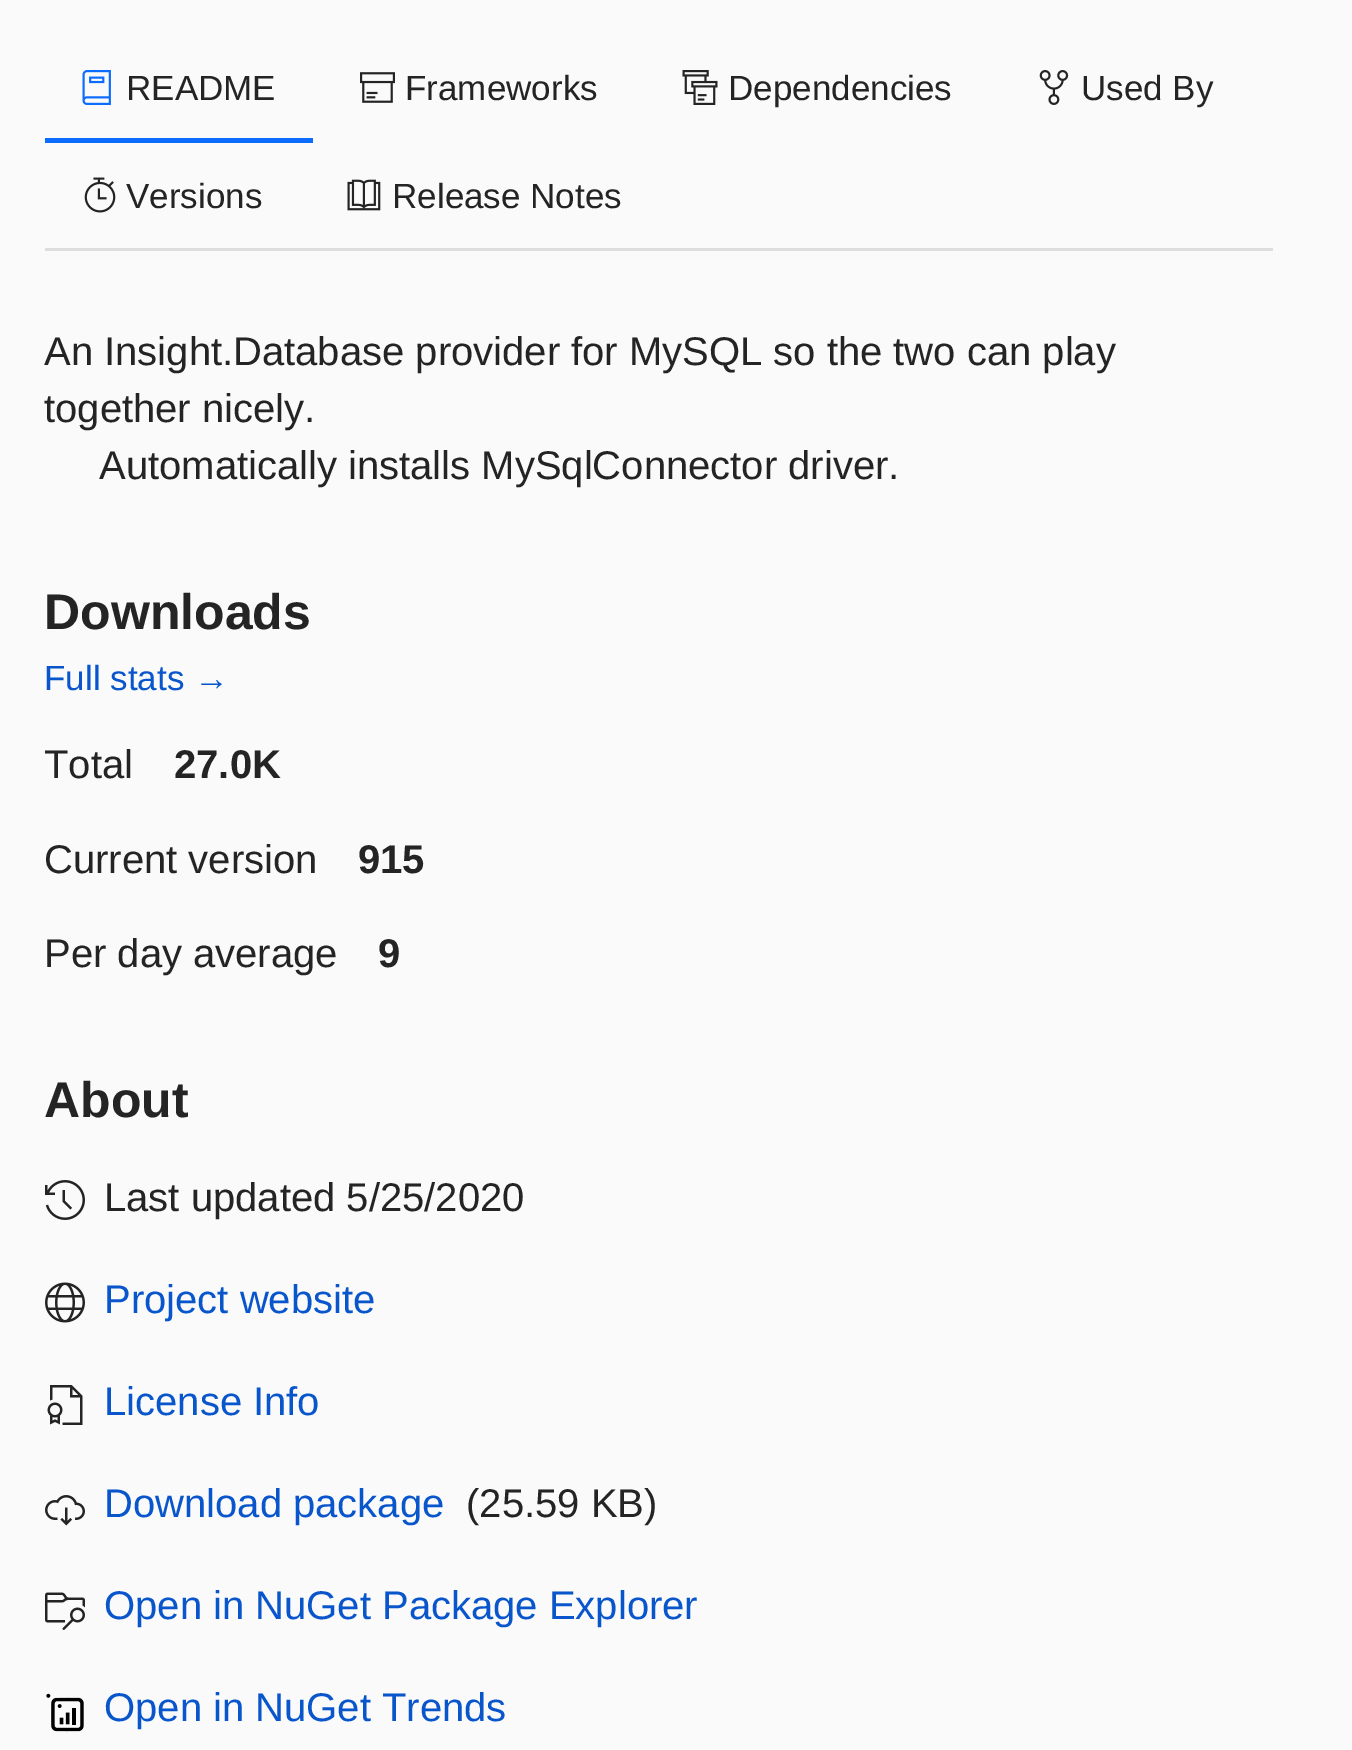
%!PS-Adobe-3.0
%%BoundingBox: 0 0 1352 1750
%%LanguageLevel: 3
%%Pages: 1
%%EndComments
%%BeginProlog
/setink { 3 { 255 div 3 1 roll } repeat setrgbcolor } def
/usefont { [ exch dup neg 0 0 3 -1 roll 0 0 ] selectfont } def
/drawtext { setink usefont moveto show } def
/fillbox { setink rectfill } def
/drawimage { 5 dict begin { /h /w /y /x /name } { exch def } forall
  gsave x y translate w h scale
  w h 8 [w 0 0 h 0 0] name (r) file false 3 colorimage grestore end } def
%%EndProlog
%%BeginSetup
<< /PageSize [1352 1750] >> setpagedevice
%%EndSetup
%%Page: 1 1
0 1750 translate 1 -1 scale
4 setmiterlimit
0 0 1352 1750 250 250 250 fillbox
45 248 1228 3 221 221 221 fillbox
45 138 268 5 11 108 255 fillbox
(assets/img1.rgb) 82 70 29 35 drawimage
(README) 126 100 /LiberationSans-Regular 35 36 36 36 drawtext
(assets/img2.rgb) 360 72 35 31 drawimage
(Frameworks) 405 100 /LiberationSans-Regular 35 36 36 36 drawtext
(assets/img3.rgb) 682 70 36 35 drawimage
(Dependencies) 728 100 /LiberationSans-Regular 35 36 36 36 drawtext
(assets/img4.rgb) 1039 70 30 35 drawimage
(Used By) 1081 100 /LiberationSans-Regular 35 36 36 36 drawtext
(assets/img5.rgb) 84 177 32 36 drawimage
(Versions) 126 208 /LiberationSans-Regular 35 36 36 36 drawtext
(assets/img6.rgb) 347 179 34 32 drawimage
(Release Notes) 392 208 /LiberationSans-Regular 35 36 36 36 drawtext
(An Insight.Database provider for MySQL so the two can play) 44 365 /LiberationSans-Regular 40 36 36 36 drawtext
(together nicely.) 44 422 /LiberationSans-Regular 40 36 36 36 drawtext
(Automatically installs MySqlConnector driver.) 99 479 /LiberationSans-Regular 40 36 36 36 drawtext
(Downloads) 44 629 /LiberationSans-Bold 50 36 36 36 drawtext
(Full stats →) 44 690 /LiberationSans-Regular 35 9 86 204 drawtext
(Total) 44 778 /LiberationSans-Regular 40 36 36 36 drawtext
(27.0K) 174 778 /LiberationSans-Bold 40 36 36 36 drawtext
(Current version) 44 873 /LiberationSans-Regular 40 36 36 36 drawtext
(915) 358 873 /LiberationSans-Bold 40 36 36 36 drawtext
(Per day average) 44 967 /LiberationSans-Regular 40 36 36 36 drawtext
(9) 378 967 /LiberationSans-Bold 40 36 36 36 drawtext
(About) 44 1117 /LiberationSans-Bold 50 36 36 36 drawtext
(assets/img7.rgb) 45 1180 40 40 drawimage
(Last updated 5/25/2020) 104 1211 /LiberationSans-Regular 40 36 36 36 drawtext
(assets/img8.rgb) 45 1282 40 41 drawimage
(Project website) 104 1313 /LiberationSans-Regular 40 9 86 204 drawtext
(assets/img9.rgb) 47 1385 36 40 drawimage
(License Info) 104 1415 /LiberationSans-Regular 40 9 86 204 drawtext
(assets/img10.rgb) 45 1495 40 31 drawimage
(Download package) 104 1517 /LiberationSans-Regular 40 9 86 204 drawtext
(\(25.59 KB\)) 466 1517 /LiberationSans-Regular 40 36 36 36 drawtext
(assets/img11.rgb) 45 1592 40 38 drawimage
(Open in NuGet Package Explorer) 104 1619 /LiberationSans-Regular 40 9 86 204 drawtext
(assets/img12.rgb) 46 1693 38 39 drawimage
(Open in NuGet Trends) 104 1721 /LiberationSans-Regular 40 9 86 204 drawtext
showpage
%%EOF
